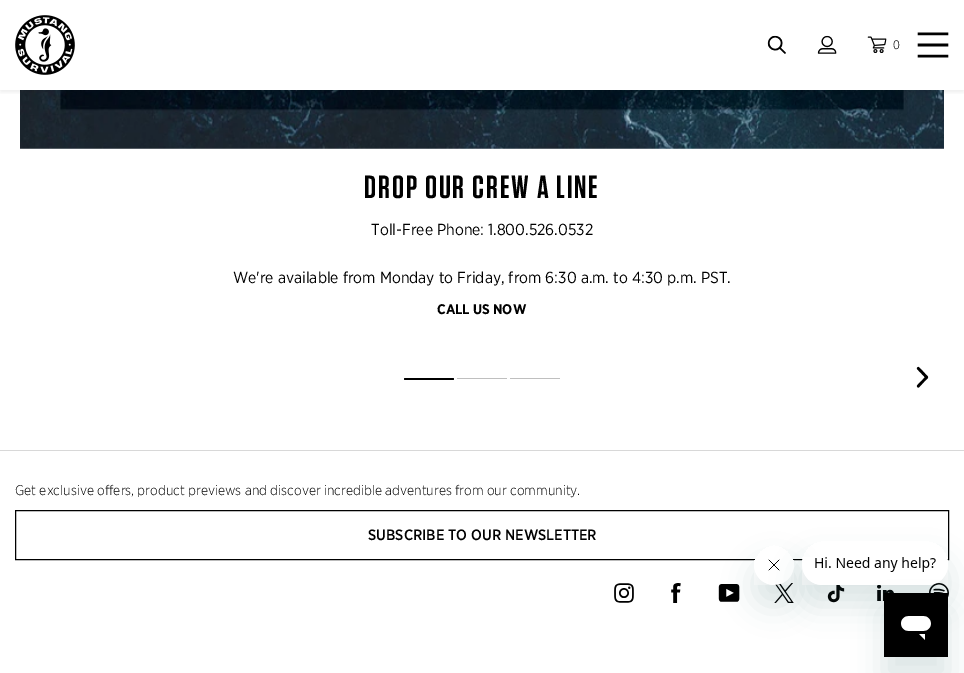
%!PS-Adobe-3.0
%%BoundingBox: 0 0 964 673
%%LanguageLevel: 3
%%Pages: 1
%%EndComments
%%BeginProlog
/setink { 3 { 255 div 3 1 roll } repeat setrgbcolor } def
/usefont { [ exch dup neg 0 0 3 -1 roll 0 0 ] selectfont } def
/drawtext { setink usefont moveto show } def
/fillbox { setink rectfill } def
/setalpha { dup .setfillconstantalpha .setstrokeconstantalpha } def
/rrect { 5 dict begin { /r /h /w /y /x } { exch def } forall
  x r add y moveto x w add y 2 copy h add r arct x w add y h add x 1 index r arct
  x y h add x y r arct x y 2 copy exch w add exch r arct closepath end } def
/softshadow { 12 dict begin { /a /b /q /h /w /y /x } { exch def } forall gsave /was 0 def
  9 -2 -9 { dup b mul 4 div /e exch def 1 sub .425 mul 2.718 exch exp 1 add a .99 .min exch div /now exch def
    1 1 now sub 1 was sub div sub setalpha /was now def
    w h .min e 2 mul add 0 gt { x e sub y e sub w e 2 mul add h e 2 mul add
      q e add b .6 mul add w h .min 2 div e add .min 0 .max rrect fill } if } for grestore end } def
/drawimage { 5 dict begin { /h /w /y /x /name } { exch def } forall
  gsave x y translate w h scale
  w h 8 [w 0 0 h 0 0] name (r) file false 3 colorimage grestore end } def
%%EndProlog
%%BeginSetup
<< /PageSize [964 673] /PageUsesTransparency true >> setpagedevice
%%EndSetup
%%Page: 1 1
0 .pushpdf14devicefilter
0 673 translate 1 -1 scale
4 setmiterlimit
0 0 964 673 255 255 255 fillbox
(assets/img6.rgb) 20 90 924 59 drawimage
gsave
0 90 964 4 rectclip
0 0 0 setink
1 3 962 88 0 3 0.1 softshadow
grestore
(assets/img1.rgb) 15 15 60 60 drawimage
(assets/img2.rgb) 767 35 19 19 drawimage
(assets/img3.rgb) 817 35 20 19 drawimage
(assets/img4.rgb) 867 36 20 17 drawimage
(0) 893 49 /NotoSans-Light 12 0 0 0 drawtext
(assets/img5.rgb) 917 32 32 26 drawimage
/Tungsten-SemiBold 32 usefont
364 198 moveto 1.9 0 (DROP OUR CREW A LINE) ashow
(Toll-Free Phone: 1.800.526.0532) 371 235 /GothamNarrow-Regular 16 0 0 0 drawtext
(We're available from Monday to Friday, from 6:30 a.m. to 4:30 p.m. PST.) 233 283 /GothamNarrow-Regular 16 0 0 0 drawtext
(CALL US NOW) 437 314 /GothamNarrow-Bold 14 0 0 0 drawtext
404 378 50 2 1 rrect fill
191 191 191 setink
457 378 50 1 0.5 rrect fill
510 378 50 1 0.5 rrect fill
(assets/img7.rgb) 916 366 13 22 drawimage
0 450 964 1 216 216 216 fillbox
(Get exclusive offers, product previews and discover incredible adventures from our community.) 15 495 /GothamNarrow-Light 14 0 0 0 drawtext
15.5 510.5 933 49 rectstroke
(SUBSCRIBE TO OUR NEWSLETTER) 368 540 /GothamNarrow-Medium 15 0 0 0 drawtext
(assets/img8.rgb) 614 583 20 20 drawimage
(assets/img9.rgb) 671 583 10 20 drawimage
(assets/img10.rgb) 718 584 22 18 drawimage
(assets/img11.rgb) 774 583 20 20 drawimage
(assets/img12.rgb) 827 585 18 18 drawimage
(assets/img13.rgb) 877 585 17 16 drawimage
(assets/img14.rgb) 929 583 20 15 drawimage
gsave
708 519 moveto 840 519 lineto 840 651 lineto 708 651 lineto closepath 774 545 moveto 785 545 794 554 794 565 curveto 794 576 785 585 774 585 curveto 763 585 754 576 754 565 curveto 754 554 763 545 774 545 curveto closepath eoclip newpath
23 73 77 setink
754 565 40 40 20 15 0.15 softshadow
grestore
(assets/img16.rgb) 754 559 40 26 drawimage
gsave
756 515 moveto 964 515 lineto 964 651 lineto 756 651 lineto closepath 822 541 moveto 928 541 lineto 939 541 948 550 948 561 curveto 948 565 lineto 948 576 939 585 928 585 curveto 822 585 lineto 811 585 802 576 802 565 curveto 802 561 lineto 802 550 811 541 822 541 curveto closepath eoclip newpath
23 73 77 setink
802 561 146 44 20 15 0.15 softshadow
grestore
(assets/img15.rgb) 802 557 146 28 drawimage
23 73 77 setink
884 613 64 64 0 15 0.15 softshadow
(assets/img17.rgb) 884 593 64 64 drawimage
.poppdf14devicefilter showpage
%%EOF
